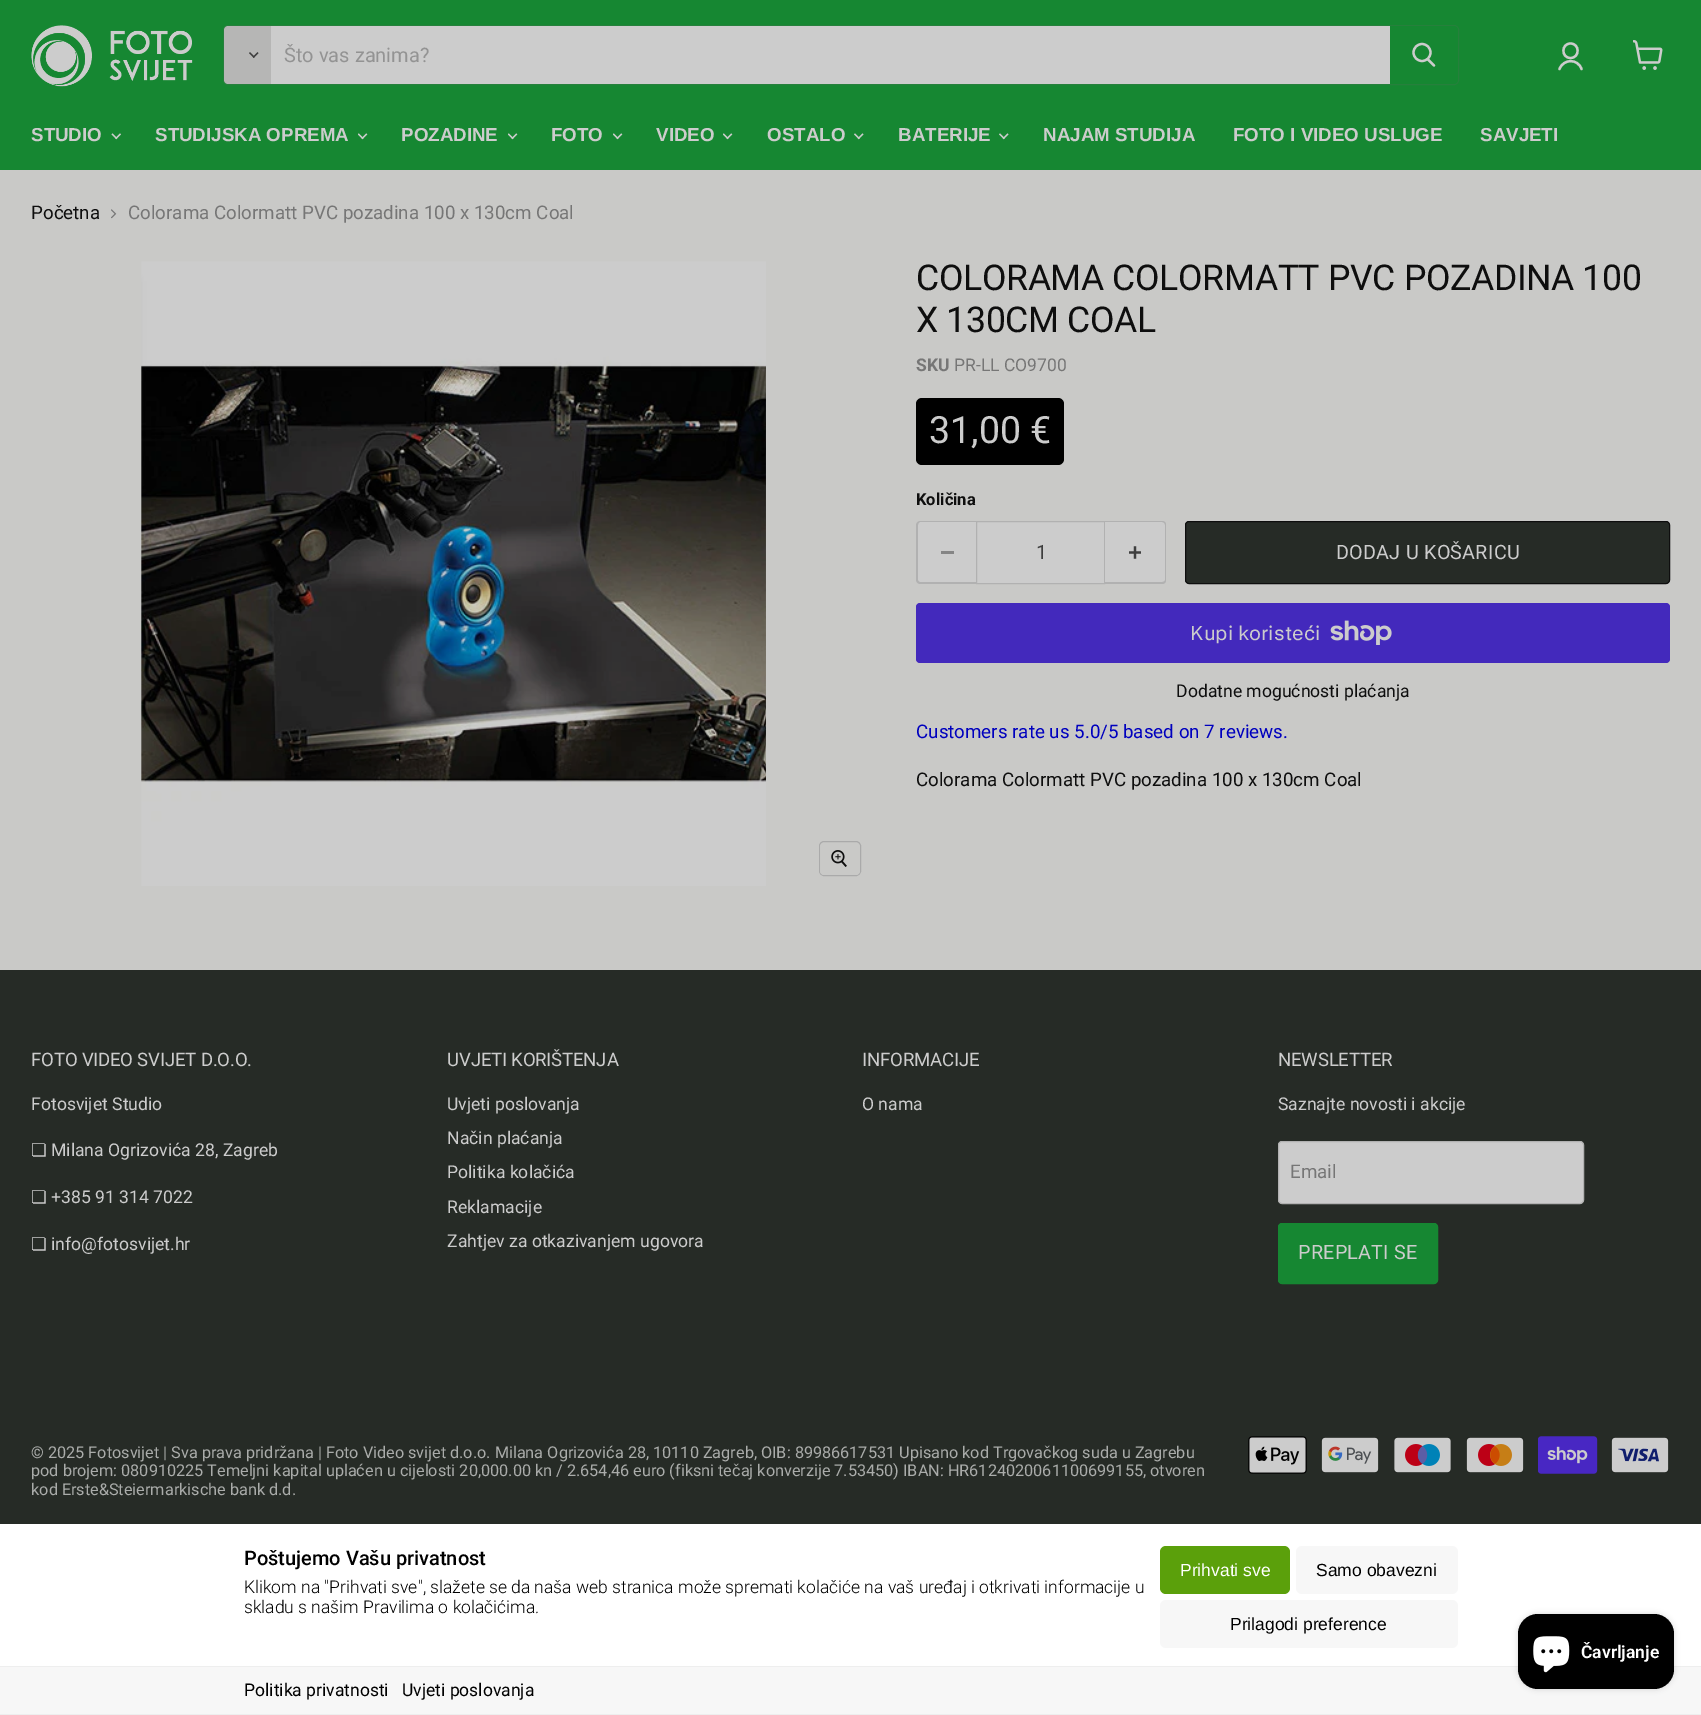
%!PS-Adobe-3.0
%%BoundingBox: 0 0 1701 1715
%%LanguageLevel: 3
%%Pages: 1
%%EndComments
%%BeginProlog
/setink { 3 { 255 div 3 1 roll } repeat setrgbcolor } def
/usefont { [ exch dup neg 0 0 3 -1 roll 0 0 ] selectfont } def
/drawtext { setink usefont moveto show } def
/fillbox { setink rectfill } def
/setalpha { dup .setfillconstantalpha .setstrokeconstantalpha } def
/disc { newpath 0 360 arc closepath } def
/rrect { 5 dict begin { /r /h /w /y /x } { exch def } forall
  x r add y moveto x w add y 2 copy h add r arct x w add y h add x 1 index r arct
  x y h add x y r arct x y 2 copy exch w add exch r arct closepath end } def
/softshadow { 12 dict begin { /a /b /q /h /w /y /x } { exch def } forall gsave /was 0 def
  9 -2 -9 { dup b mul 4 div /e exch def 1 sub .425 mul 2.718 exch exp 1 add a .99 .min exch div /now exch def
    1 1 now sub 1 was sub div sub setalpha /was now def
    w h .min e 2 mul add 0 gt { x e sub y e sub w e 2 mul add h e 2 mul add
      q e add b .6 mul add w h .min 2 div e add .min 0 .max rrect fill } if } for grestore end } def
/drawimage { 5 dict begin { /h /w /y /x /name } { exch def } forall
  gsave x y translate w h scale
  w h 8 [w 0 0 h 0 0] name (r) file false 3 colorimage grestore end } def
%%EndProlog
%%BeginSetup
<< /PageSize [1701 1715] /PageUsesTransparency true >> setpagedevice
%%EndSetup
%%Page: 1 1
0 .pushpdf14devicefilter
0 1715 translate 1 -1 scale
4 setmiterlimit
0 0 1701 1715 201 201 199 fillbox
0 0 1701 170 22 135 50 fillbox
(assets/img1.rgb) 31 25 162 62 drawimage
0.2 setalpha
101 101 100 setink
223.5 25.5 1235 59 4.5 rrect stroke
1 setalpha
182 182 181 setink
228 26 moveto 271 26 lineto 271 84 lineto 228 84 lineto 226 84 224 82 224 80 curveto 224 30 lineto 224 28 226 26 228 26 curveto closepath fill
(assets/img2.rgb) 249 52 10 6 drawimage
271 26 1119 58 204 204 204 fillbox
(Što vas zanima?) 284 62 /Roboto-Regular 20 147 147 147 drawtext
22 135 50 setink
1390 26 moveto 1454 26 lineto 1456 26 1458 28 1458 30 curveto 1458 80 lineto 1458 82 1456 84 1454 84 curveto 1390 84 lineto closepath fill
204 204 204 setink
2.2 setlinewidth
1 setlinecap
1434 65.5 moveto 1428 59.5 lineto stroke
0 setlinecap
1422 52.5 8.5 disc stroke
2.3 setlinewidth
1 setlinecap
1 setlinejoin
1570.5 58 moveto 1580 58 1580 43.5 1570.5 43.5 curveto 1561 43.5 1561 58 1570.5 58 curveto closepath 1581.5 69 moveto 1578 58.5 1563.5 58.5 1559.5 69 curveto stroke
(assets/img3.rgb) 1633 40 30 30 drawimage
(STUDIO) 31 141 /LiberationSans-Bold 18.75 204 204 204 drawtext
(assets/img4.rgb) 111 133 10 7 drawimage
(STUDIJSKA OPREMA) 155 141 /LiberationSans-Bold 18.75 204 204 204 drawtext
(assets/img5.rgb) 358 133 10 7 drawimage
(POZADINE) 401 141 /LiberationSans-Bold 18.75 204 204 204 drawtext
(assets/img5.rgb) 508 133 10 7 drawimage
(FOTO) 551 141 /LiberationSans-Bold 18.75 204 204 204 drawtext
(assets/img5.rgb) 613 133 10 7 drawimage
(VIDEO) 656 141 /LiberationSans-Bold 18.75 204 204 204 drawtext
(assets/img5.rgb) 723 133 10 7 drawimage
(OSTALO) 767 141 /LiberationSans-Bold 18.75 204 204 204 drawtext
(assets/img6.rgb) 854 133 10 7 drawimage
(BATERIJE) 898 141 /LiberationSans-Bold 18.75 204 204 204 drawtext
(assets/img6.rgb) 999 133 10 7 drawimage
(NAJAM STUDIJA) 1043 141 /LiberationSans-Bold 18.75 204 204 204 drawtext
(FOTO I VIDEO USLUGE) 1233 141 /LiberationSans-Bold 18.75 204 204 204 drawtext
(SAVJETI) 1480 141 /LiberationSans-Bold 18.75 204 204 204 drawtext
(Početna) 31 219 /Roboto-Regular 18.75 14 14 14 drawtext
(assets/img7.rgb) 111 209 6 10 drawimage
(Colorama Colormatt PVC pozadina 100 x 130cm Coal) 128 219 /Roboto-Regular 18.75 118 118 118 drawtext
(assets/img8.rgb) 141 261 625 625 drawimage
170 170 170 setink
1 setlinewidth
0 setlinecap
0 setlinejoin
819.5 841.5 41 34 4.5 rrect stroke
0.9 setalpha
201 201 199 setink
820 843 40 32 4 rrect fill
1 setalpha
(assets/img9.rgb) 831 850 16 17 drawimage
/Roboto-Regular 35.6 usefont
14 14 14 setink
916 290 moveto -0.35 0 (COLORAMA COLORMATT PVC POZADINA 100) ashow
916 332 moveto -0.35 0 (X 130CM COAL) ashow
(SKU) 916 371 /Roboto-Bold 17.5 118 118 118 drawtext
(PR-LL CO9700) 954 371 /Roboto-Regular 17.5 118 118 118 drawtext
0 0 0 setink
916 398 148 67 6 rrect fill
(31,00 €) 929 443 /Roboto-Regular 37.5 204 204 204 drawtext
(Količina) 916 505 /Roboto-Bold 16.5 14 14 14 drawtext
204 204 204 setink
920 521 moveto 976 521 lineto 976 584 lineto 920 584 lineto 918 584 916 582 916 580 curveto 916 525 lineto 916 523 918 521 920 521 curveto closepath fill
177 177 177 setink
920 521 moveto 976 521 lineto 976 584 lineto 920 584 lineto 918 584 916 582 916 580 curveto 916 525 lineto 916 523 918 521 920 521 curveto closepath 920 522 moveto 976 522 lineto 976 582 lineto 920 582 lineto 919 582 918 581 918 580 curveto 918 525 lineto 918 524 919 522 920 522 curveto closepath eofill
941 551 13 3 133 133 133 fillbox
204 204 204 setink
976.5 521.5 moveto 1104.5 521.5 lineto 1104.5 583.5 lineto 976.5 583.5 lineto closepath gsave fill grestore
177 177 177 setink
stroke
(1) 1036 559 /Roboto-Regular 19.75 62 62 62 drawtext
204 204 204 setink
1105 521 moveto 1162 521 lineto 1164 521 1166 523 1166 525 curveto 1166 580 lineto 1166 582 1164 584 1162 584 curveto 1105 584 lineto closepath fill
177 177 177 setink
1105 521 moveto 1162 521 lineto 1165 521 1166 523 1166 525 curveto 1166 580 lineto 1166 582 1165 584 1162 584 curveto 1105 584 lineto closepath 1105 522 moveto 1162 522 lineto 1164 522 1165 524 1165 525 curveto 1165 580 lineto 1165 581 1164 582 1162 582 curveto 1105 582 lineto closepath eofill
(assets/img10.rgb) 1129 546 12 13 drawimage
38 43 38 setink
1185.5 521.5 484 62 3.5 rrect gsave fill grestore
14 14 14 setink
stroke
204 204 204 setink
1336 559 moveto 0.25 0 (DODAJ U KOŠARICU) ashow
67 41 188 setink
916 603 754 60 4 rrect fill
(Kupi koristeći) 1190 640 /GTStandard-Regular 20 204 204 204 drawtext
(assets/img11.rgb) 1330 620 62 25 drawimage
(Dodatne mogućnosti plaćanja) 1176 697 /Roboto-Regular 17.6 14 14 14 drawtext
(Customers rate us 5.0/5 based on 7 reviews.) 916 738 /Roboto-Regular 18.75 0 0 190 drawtext
(Colorama Colormatt PVC pozadina 100 x 130cm Coal) 916 786 /Roboto-Regular 18.75 14 14 14 drawtext
0 970 1701 554 38 43 38 fillbox
/Roboto-Regular 18.6 usefont
204 204 204 setink
31 1066 moveto -0.2 0 (FOTO VIDEO SVIJET D.O.O.) ashow
(Fotosvijet Studio) 31 1110 /Roboto-Regular 17.6 204 204 204 drawtext
(❏) 31 1156 /DejaVuSans-Regular 17.6 204 204 204 drawtext
(Milana Ogrizovića 28, Zagreb) 51 1156 /Roboto-Regular 17.6 204 204 204 drawtext
(❏) 31 1203 /DejaVuSans-Regular 17.6 204 204 204 drawtext
(+385 91 314 7022) 51 1203 /Roboto-Regular 17.6 204 204 204 drawtext
(❏) 31 1250 /DejaVuSans-Regular 17.6 204 204 204 drawtext
(info@fotosvijet.hr) 51 1250 /Roboto-Regular 17.6 204 204 204 drawtext
/Roboto-Regular 18.6 usefont
447 1066 moveto -0.2 0 (UVJETI KORIŠTENJA) ashow
(Uvjeti poslovanja) 447 1110 /Roboto-Regular 17.6 204 204 204 drawtext
(Način plaćanja) 447 1144 /Roboto-Regular 17.6 204 204 204 drawtext
(Politika kolačića) 447 1178 /Roboto-Regular 17.6 204 204 204 drawtext
(Reklamacije) 447 1213 /Roboto-Regular 17.6 204 204 204 drawtext
(Zahtjev za otkazivanjem ugovora) 447 1247 /Roboto-Regular 17.6 204 204 204 drawtext
/Roboto-Regular 18.6 usefont
862 1066 moveto -0.2 0 (INFORMACIJE) ashow
(O nama) 862 1110 /Roboto-Regular 17.6 204 204 204 drawtext
/Roboto-Regular 18.6 usefont
1278 1066 moveto -0.2 0 (NEWSLETTER) ashow
(Saznajte novosti i akcije) 1278 1110 /Roboto-Regular 17.6 204 204 204 drawtext
1278.5 1141.5 305 62 3.5 rrect gsave fill grestore
177 177 177 setink
stroke
(Email) 1290 1178 /Roboto-Regular 18.75 118 118 118 drawtext
22 135 50 setink
1278.5 1223.5 159 60 3.5 rrect gsave fill grestore
stroke
/Roboto-Regular 19.75 usefont
204 204 204 setink
1298 1259 moveto 0.25 0 (PREPLATI SE) ashow
(© 2025 Fotosvijet | Sva prava pridržana | Foto Video svijet d.o.o. Milana Ogrizovića 28, 10110 Zagreb, OIB: 89986617531 Upisano kod Trgovačkog suda u Zagrebu) 31 1458 /Roboto-Regular 16.25 170 172 170 drawtext
(pod brojem: 080910225 Temeljni kapital uplaćen u cijelosti 20,000.00 kn / 2.654,46 euro \(fiksni tečaj konverzije 7.53450\) IBAN: HR6124020061100699155, otvoren) 31 1476 /Roboto-Regular 16.25 170 172 170 drawtext
(kod Erste&Steiermarkische bank d.d.) 31 1495 /Roboto-Regular 16.25 170 172 170 drawtext
(assets/img12.rgb) 1248 1436 59 38 drawimage
(assets/img13.rgb) 1321 1437 58 36 drawimage
(assets/img14.rgb) 1394 1437 57 36 drawimage
(assets/img15.rgb) 1466 1437 58 36 drawimage
(assets/img16.rgb) 1538 1436 60 38 drawimage
(assets/img17.rgb) 1611 1437 58 36 drawimage
0 1524 1701 142 255 255 255 fillbox
(Poštujemo Vašu privatnost) 244 1565 /Roboto-Medium 20 0 0 0 drawtext
(Klikom na "Prihvati sve", slažete se da naša web stranica može spremati kolačiće na vaš uređaj i otkrivati informacije u) 244 1593 /Roboto-Light 17.5 0 0 0 drawtext
(skladu s našim Pravilima o kolačićima.) 244 1613 /Roboto-Light 17.5 0 0 0 drawtext
91 160 11 setink
1160 1546 130 48 6 rrect fill
(Prihvati sve) 1180 1576 /LiberationSans-Regular 17.5 255 255 255 drawtext
247 247 247 setink
1296 1546 162 48 6 rrect fill
(Samo obavezni) 1316 1576 /LiberationSans-Regular 17.5 0 0 0 drawtext
247 247 247 setink
1160 1600 298 48 6 rrect fill
(Prilagodi preference) 1230 1630 /LiberationSans-Regular 17.5 0 0 0 drawtext
0 1667 1701 47 247 247 247 fillbox
0 1666 1701 1 238 238 238 fillbox
0 1714 1701 1 238 238 238 fillbox
(Politika privatnosti) 244 1696 /Roboto-Regular 17.5 0 0 0 drawtext
(Uvjeti poslovanja) 402 1696 /Roboto-Regular 17.5 0 0 0 drawtext
1518 1614 156 75 20 3 0.15 softshadow
1518 1614 156 75 20 rrect fill
(assets/img18.rgb) 1533 1636 37 37 drawimage
(Čavrljanje) 1581 1658 /Roboto-SemiBold 17.5 255 255 255 drawtext
.poppdf14devicefilter showpage
%%EOF
